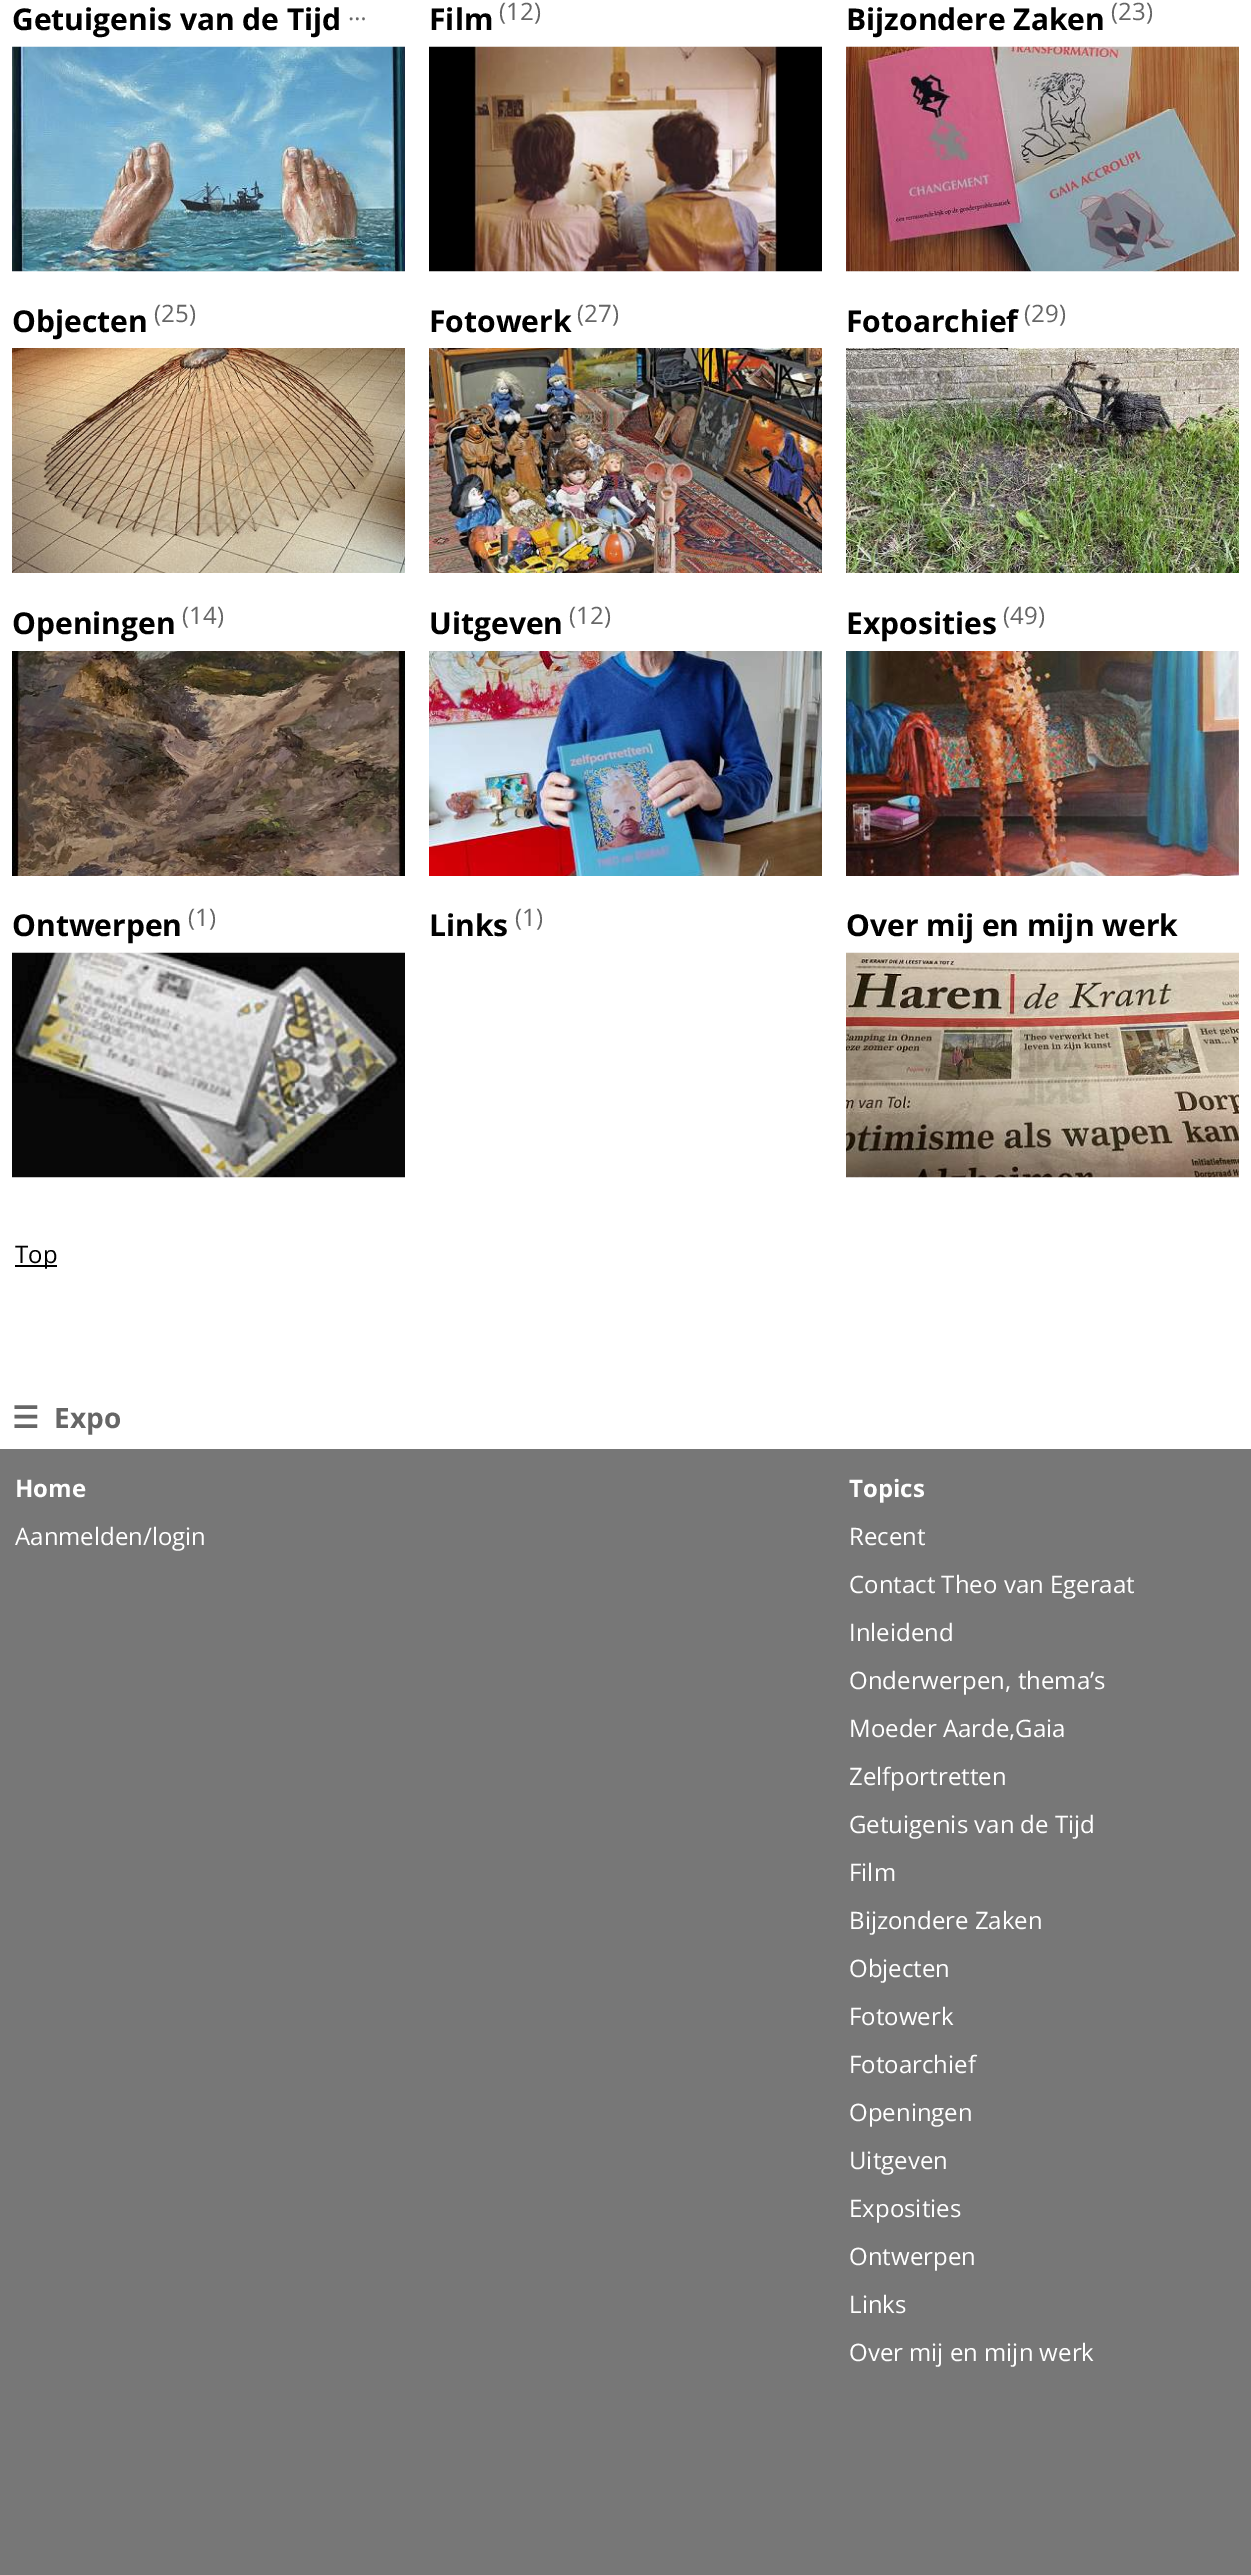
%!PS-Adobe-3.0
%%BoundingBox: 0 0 1251 2575
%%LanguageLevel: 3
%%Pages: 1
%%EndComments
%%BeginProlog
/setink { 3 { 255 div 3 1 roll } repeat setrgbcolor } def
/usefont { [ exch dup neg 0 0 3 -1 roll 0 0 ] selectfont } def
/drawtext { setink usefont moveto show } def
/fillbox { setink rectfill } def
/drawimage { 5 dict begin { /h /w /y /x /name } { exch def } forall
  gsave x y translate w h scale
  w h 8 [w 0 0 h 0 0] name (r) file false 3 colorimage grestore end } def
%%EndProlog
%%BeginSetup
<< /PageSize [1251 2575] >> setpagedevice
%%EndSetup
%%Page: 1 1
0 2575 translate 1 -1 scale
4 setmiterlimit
0 0 1251 2575 255 255 255 fillbox
(Getuigenis van de Tijd) 12 30 /OpenSans-Bold 30 0 0 0 drawtext
(…) 348 20 /OpenSans-Regular 24 102 102 102 drawtext
(assets/img1.rgb) 12 46 393 226 drawimage
(Film) 429 30 /OpenSans-Bold 30 0 0 0 drawtext
(\(12\)) 499 20 /OpenSans-Regular 24 102 102 102 drawtext
(assets/img2.rgb) 429 46 393 226 drawimage
(Bijzondere Zaken) 846 30 /OpenSans-Bold 30 0 0 0 drawtext
(\(23\)) 1111 20 /OpenSans-Regular 24 102 102 102 drawtext
(assets/img3.rgb) 846 46 393 226 drawimage
(Objecten) 12 332 /OpenSans-Bold 30 0 0 0 drawtext
(\(25\)) 154 322 /OpenSans-Regular 24 102 102 102 drawtext
(assets/img4.rgb) 12 348 393 225 drawimage
(Fotowerk) 429 332 /OpenSans-Bold 30 0 0 0 drawtext
(\(27\)) 577 322 /OpenSans-Regular 24 102 102 102 drawtext
(assets/img5.rgb) 429 348 393 225 drawimage
(Fotoarchief) 846 332 /OpenSans-Bold 30 0 0 0 drawtext
(\(29\)) 1024 322 /OpenSans-Regular 24 102 102 102 drawtext
(assets/img6.rgb) 846 348 393 225 drawimage
(Openingen) 12 634 /OpenSans-Bold 30 0 0 0 drawtext
(\(14\)) 182 624 /OpenSans-Regular 24 102 102 102 drawtext
(assets/img7.rgb) 12 651 393 225 drawimage
(Uitgeven) 429 634 /OpenSans-Bold 30 0 0 0 drawtext
(\(12\)) 569 624 /OpenSans-Regular 24 102 102 102 drawtext
(assets/img8.rgb) 429 651 393 225 drawimage
(Exposities) 846 634 /OpenSans-Bold 30 0 0 0 drawtext
(\(49\)) 1003 624 /OpenSans-Regular 24 102 102 102 drawtext
(assets/img9.rgb) 846 651 393 225 drawimage
(Ontwerpen) 12 936 /OpenSans-Bold 30 0 0 0 drawtext
(\(1\)) 188 926 /OpenSans-Regular 24 102 102 102 drawtext
(assets/img10.rgb) 12 952 393 226 drawimage
(Links) 429 936 /OpenSans-Bold 30 0 0 0 drawtext
(\(1\)) 515 926 /OpenSans-Regular 24 102 102 102 drawtext
(Over mij en mijn werk) 846 936 /OpenSans-Bold 30 0 0 0 drawtext
(assets/img11.rgb) 846 952 393 226 drawimage
15 1265 42 2 0 0 0 fillbox
(Top) 15 1263 /OpenSans-Regular 24 0 0 0 drawtext
(☰) 12 1428 /DejaVuSans-Bold 30 102 102 102 drawtext
(Expo) 54 1428 /OpenSans-Bold 28 102 102 102 drawtext
0 1449 1251 1126 119 119 119 fillbox
(Home) 15 1497 /OpenSans-Bold 24 255 255 255 drawtext
(Aanmelden/login) 15 1545 /OpenSans-Regular 24 255 255 255 drawtext
(Topics) 849 1497 /OpenSans-Bold 24 255 255 255 drawtext
(Recent) 849 1545 /OpenSans-Regular 24 255 255 255 drawtext
(Contact Theo van Egeraat) 849 1593 /OpenSans-Regular 24 255 255 255 drawtext
(Inleidend) 849 1641 /OpenSans-Regular 24 255 255 255 drawtext
(Onderwerpen, thema’s) 849 1689 /OpenSans-Regular 24 255 255 255 drawtext
(Moeder Aarde,Gaia) 849 1737 /OpenSans-Regular 24 255 255 255 drawtext
(Zelfportretten) 849 1785 /OpenSans-Regular 24 255 255 255 drawtext
(Getuigenis van de Tijd) 849 1833 /OpenSans-Regular 24 255 255 255 drawtext
(Film) 849 1881 /OpenSans-Regular 24 255 255 255 drawtext
(Bijzondere Zaken) 849 1929 /OpenSans-Regular 24 255 255 255 drawtext
(Objecten) 849 1977 /OpenSans-Regular 24 255 255 255 drawtext
(Fotowerk) 849 2025 /OpenSans-Regular 24 255 255 255 drawtext
(Fotoarchief) 849 2073 /OpenSans-Regular 24 255 255 255 drawtext
(Openingen) 849 2121 /OpenSans-Regular 24 255 255 255 drawtext
(Uitgeven) 849 2169 /OpenSans-Regular 24 255 255 255 drawtext
(Exposities) 849 2217 /OpenSans-Regular 24 255 255 255 drawtext
(Ontwerpen) 849 2265 /OpenSans-Regular 24 255 255 255 drawtext
(Links) 849 2313 /OpenSans-Regular 24 255 255 255 drawtext
(Over mij en mijn werk) 849 2361 /OpenSans-Regular 24 255 255 255 drawtext
showpage
%%EOF
